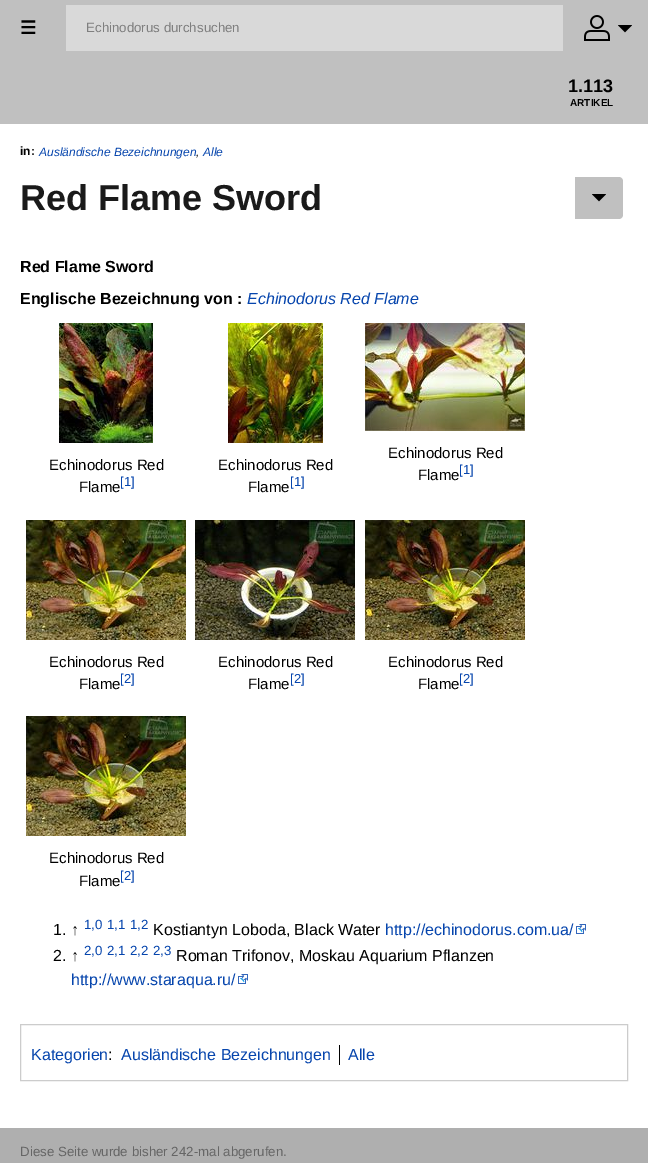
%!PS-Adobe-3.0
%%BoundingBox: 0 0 648 1163
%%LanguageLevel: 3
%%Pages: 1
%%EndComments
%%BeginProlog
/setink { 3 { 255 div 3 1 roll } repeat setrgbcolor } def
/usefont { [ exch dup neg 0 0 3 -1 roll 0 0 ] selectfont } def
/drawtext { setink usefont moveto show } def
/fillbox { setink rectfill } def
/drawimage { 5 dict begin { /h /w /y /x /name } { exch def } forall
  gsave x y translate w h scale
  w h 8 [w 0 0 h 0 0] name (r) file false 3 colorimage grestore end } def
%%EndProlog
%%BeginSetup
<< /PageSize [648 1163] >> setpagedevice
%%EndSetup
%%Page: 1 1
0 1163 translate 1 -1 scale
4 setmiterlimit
0 0 648 1163 175 175 175 fillbox
0 0 648 124 192 192 192 fillbox
/DejaVuSans-Bold 18 usefont
0 0 0 setink
20 34 moveto 6 0 (☰) ashow
66 5 497 46 217 217 217 fillbox
(Echinodorus durchsuchen) 86 32 /LiberationSans-Regular 13.3 127 127 127 drawtext
(assets/img1.rgb) 584 15 26 26 drawimage
(assets/img2.rgb) 618 25 14 8 drawimage
(1.113) 568 92 /LiberationSans-Bold 18 0 0 0 drawtext
(ARTIKEL) 570 106 /LiberationSans-Bold 10 0 0 0 drawtext
0 124 648 1004 255 255 255 fillbox
(in:) 20 155 /LiberationSans-Bold 12 0 0 0 drawtext
(Ausländische Bezeichnungen) 39 156 /LiberationSans-Italic 12 6 69 173 drawtext
(,) 196 156 /LiberationSans-Italic 12 0 0 0 drawtext
(Alle) 203 156 /LiberationSans-Italic 12 6 69 173 drawtext
(Red Flame Sword) 20 210 /LiberationSans-Bold 36 26 26 26 drawtext
192 192 192 setink
575 177 moveto 619 177 lineto 621 177 623 179 623 181 curveto 623 215 lineto 623 217 621 219 619 219 curveto 575 219 lineto closepath fill
(assets/img2.rgb) 592 194 14 8 drawimage
(Red Flame Sword) 20 272 /LiberationSans-Bold 16 0 0 0 drawtext
(Englische Bezeichnung von :) 20 304 /LiberationSans-Bold 16 0 0 0 drawtext
(Echinodorus Red Flame) 247 304 /LiberationSans-Italic 16 6 69 173 drawtext
(assets/img3.rgb) 59 323 94 120 drawimage
(Echinodorus Red) 49 470 /LiberationSans-Regular 15 0 0 0 drawtext
(Flame) 79 492 /LiberationSans-Regular 15 0 0 0 drawtext
([1]) 120 486 /LiberationSans-Regular 13 6 69 173 drawtext
(assets/img4.rgb) 228 323 95 120 drawimage
(Echinodorus Red) 218 470 /LiberationSans-Regular 15 0 0 0 drawtext
(Flame) 248 492 /LiberationSans-Regular 15 0 0 0 drawtext
([1]) 290 486 /LiberationSans-Regular 13 6 69 173 drawtext
(assets/img5.rgb) 365 323 160 108 drawimage
(Echinodorus Red) 388 458 /LiberationSans-Regular 15 0 0 0 drawtext
(Flame) 418 480 /LiberationSans-Regular 15 0 0 0 drawtext
([1]) 459 474 /LiberationSans-Regular 13 6 69 173 drawtext
(assets/img6.rgb) 26 520 160 120 drawimage
(Echinodorus Red) 49 667 /LiberationSans-Regular 15 0 0 0 drawtext
(Flame) 79 689 /LiberationSans-Regular 15 0 0 0 drawtext
([2]) 120 683 /LiberationSans-Regular 13 6 69 173 drawtext
(assets/img7.rgb) 195 520 160 120 drawimage
(Echinodorus Red) 218 667 /LiberationSans-Regular 15 0 0 0 drawtext
(Flame) 248 689 /LiberationSans-Regular 15 0 0 0 drawtext
([2]) 290 683 /LiberationSans-Regular 13 6 69 173 drawtext
(assets/img8.rgb) 365 520 160 120 drawimage
(Echinodorus Red) 388 667 /LiberationSans-Regular 15 0 0 0 drawtext
(Flame) 418 689 /LiberationSans-Regular 15 0 0 0 drawtext
([2]) 459 683 /LiberationSans-Regular 13 6 69 173 drawtext
(assets/img9.rgb) 26 716 160 120 drawimage
(Echinodorus Red) 49 863 /LiberationSans-Regular 15 0 0 0 drawtext
(Flame) 79 886 /LiberationSans-Regular 15 0 0 0 drawtext
([2]) 120 880 /LiberationSans-Regular 13 6 69 173 drawtext
(1. ↑) 53 935 /LiberationSans-Regular 16 0 0 0 drawtext
(1,0) 84 929 /LiberationSans-Regular 13.3 6 69 173 drawtext
(1,1) 107 929 /LiberationSans-Regular 13.3 6 69 173 drawtext
(1,2) 130 929 /LiberationSans-Regular 13.3 6 69 173 drawtext
(Kostiantyn Loboda, Black Water) 153 935 /LiberationSans-Regular 16 0 0 0 drawtext
(http://echinodorus.com.ua/) 385 935 /LiberationSans-Regular 16 6 69 173 drawtext
(assets/img10.rgb) 576 924 10 10 drawimage
(2. ↑) 53 961 /LiberationSans-Regular 16 0 0 0 drawtext
(2,0) 84 955 /LiberationSans-Regular 13.3 6 69 173 drawtext
(2,1) 107 955 /LiberationSans-Regular 13.3 6 69 173 drawtext
(2,2) 130 955 /LiberationSans-Regular 13.3 6 69 173 drawtext
(2,3) 153 955 /LiberationSans-Regular 13.3 6 69 173 drawtext
(Roman Trifonov, Moskau Aquarium Pflanzen) 176 961 /LiberationSans-Regular 16 0 0 0 drawtext
(http://www.staraqua.ru/) 71 985 /LiberationSans-Regular 16 6 69 173 drawtext
(assets/img10.rgb) 238 974 10 10 drawimage
204 204 204 setink
20.5 1024.5 607 56 rectstroke
(Kategorien) 31 1060 /LiberationSans-Regular 16 6 69 173 drawtext
(:) 108 1060 /LiberationSans-Regular 16 0 0 0 drawtext
(Ausländische Bezeichnungen) 121 1060 /LiberationSans-Regular 16 6 69 173 drawtext
339 1045 1 20 0 0 0 fillbox
(Alle) 348 1060 /LiberationSans-Regular 16 6 69 173 drawtext
(Diese Seite wurde bisher 242-mal abgerufen.) 20 1156 /LiberationSans-Regular 13.3 102 102 102 drawtext
showpage
%%EOF
